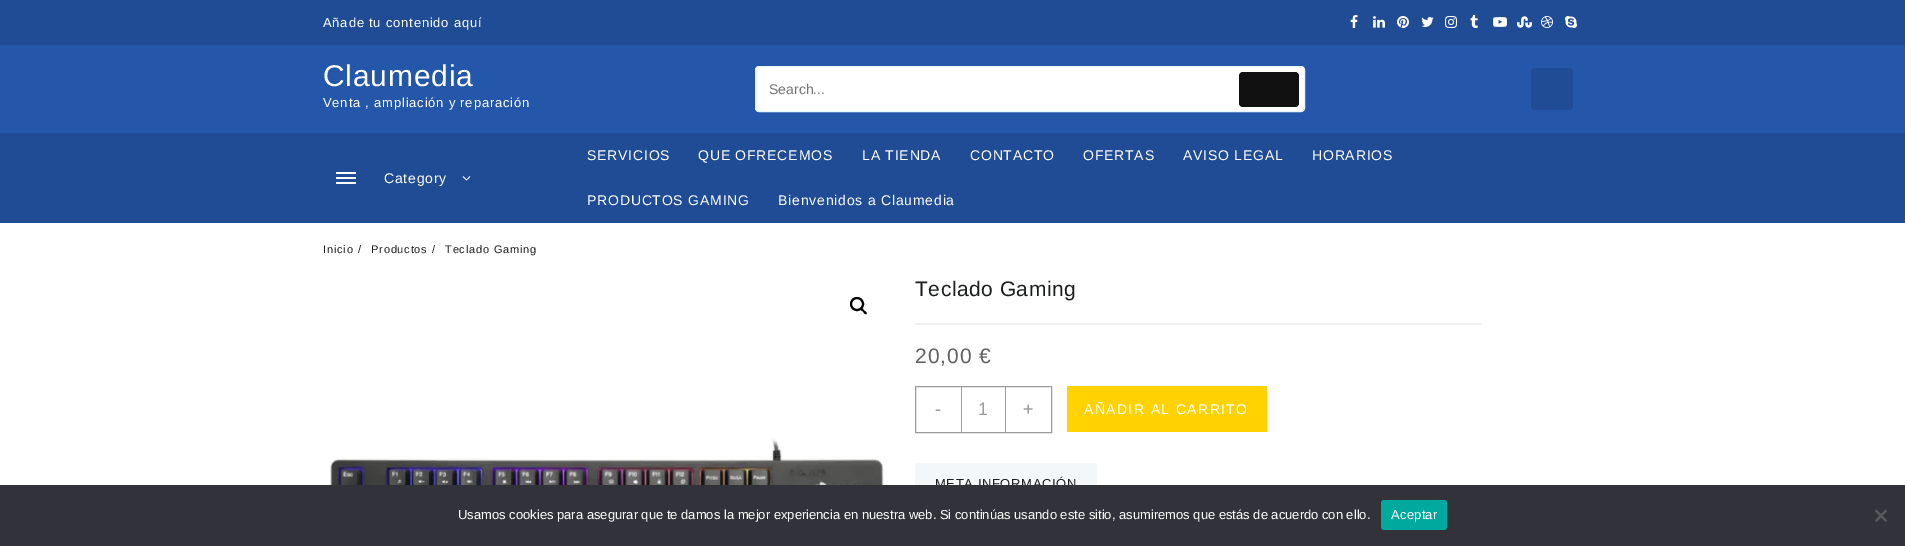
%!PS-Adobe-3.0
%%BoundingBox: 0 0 1905 546
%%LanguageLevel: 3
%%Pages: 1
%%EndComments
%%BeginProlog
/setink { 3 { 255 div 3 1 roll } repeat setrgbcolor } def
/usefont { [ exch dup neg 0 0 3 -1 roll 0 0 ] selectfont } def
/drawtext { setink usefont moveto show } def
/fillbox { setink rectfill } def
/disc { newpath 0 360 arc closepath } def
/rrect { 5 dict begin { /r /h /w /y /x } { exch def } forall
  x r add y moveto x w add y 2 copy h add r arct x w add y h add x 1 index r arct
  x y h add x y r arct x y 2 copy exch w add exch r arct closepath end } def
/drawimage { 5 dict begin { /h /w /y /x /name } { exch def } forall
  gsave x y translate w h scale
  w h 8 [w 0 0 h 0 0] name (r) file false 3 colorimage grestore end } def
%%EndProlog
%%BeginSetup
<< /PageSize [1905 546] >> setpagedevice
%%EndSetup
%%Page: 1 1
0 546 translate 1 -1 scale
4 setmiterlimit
0 0 1905 546 255 255 255 fillbox
0 0 1905 45 31 76 148 fillbox
/LiberationSans-Regular 13 usefont
255 255 255 setink
323 27 moveto 0.8 0 (Añade tu contenido aquí) ashow
(assets/img1.rgb) 1350 15 8 13 drawimage
(assets/img2.rgb) 1373 16 12 12 drawimage
(assets/img3.rgb) 1397 16 12 12 drawimage
(assets/img4.rgb) 1421 17 13 10 drawimage
(assets/img5.rgb) 1445 16 12 12 drawimage
(assets/img6.rgb) 1470 15 8 13 drawimage
(assets/img7.rgb) 1493 17 14 10 drawimage
(assets/img8.rgb) 1517 16 15 12 drawimage
(assets/img9.rgb) 1541 16 12 12 drawimage
(assets/img10.rgb) 1565 16 12 12 drawimage
0 45 1905 88 36 87 170 fillbox
/LiberationSans-Regular 30 usefont
255 255 255 setink
323 86 moveto 0.8 0 (Claumedia) ashow
/LiberationSans-Regular 13 usefont
323 107 moveto 0.8 0 (Venta , ampliación y reparación) ashow
755.5 66.5 549 45 3.5 rrect gsave fill grestore
231 245 255 setink
stroke
(Search...) 769 94 /LiberationSans-Regular 14 117 117 117 drawtext
17 17 17 setink
1239 72 60 35 4 rrect fill
31 76 148 setink
1531 68 42 42 4 rrect fill
0 133 1905 90 31 76 148 fillbox
255 255 255 setink
336 172 20 2 1 rrect fill
336 177 20 2 1 rrect fill
336 182 20 2 1 rrect fill
384 183 moveto 0.8 0 (Category) ashow
(assets/img11.rgb) 462 176 9 5 drawimage
587 160 moveto 0.8 0 (SERVICIOS) ashow
698 160 moveto 0.8 0 (QUE OFRECEMOS) ashow
862 160 moveto 0.8 0 (LA TIENDA) ashow
970 160 moveto 0.8 0 (CONTACTO) ashow
1083 160 moveto 0.8 0 (OFERTAS) ashow
1183 160 moveto 0.8 0 (AVISO LEGAL) ashow
1312 160 moveto 0.8 0 (HORARIOS) ashow
587 205 moveto 0.8 0 (PRODUCTOS GAMING) ashow
778 205 moveto 0.8 0 (Bienvenidos a Claumedia) ashow
/LiberationSans-Regular 11 usefont
28 29 30 setink
323 253 moveto 0.8 0 (Inicio) ashow
358 253 moveto 0.8 0 (/) ashow
371 253 moveto 0.8 0 (Productos) ashow
432 253 moveto 0.8 0 (/) ashow
445 253 moveto 0.8 0 (Teclado Gaming) ashow
0 0 0 setink
2 setlinewidth
857 304 6 disc stroke
860.5 308 moveto 862 307 863.5 309.5 864 310.5 curveto 865 311 867.5 312.5 866.5 314 curveto 865 315 863.5 312.5 863 311.5 curveto 862 311 859.5 309.5 860.5 308 curveto closepath fill
(assets/img12.rgb) 330 438 556 47 drawimage
915 323 567 2 240 240 240 fillbox
/LiberationSans-Regular 21 usefont
28 29 30 setink
915 296 moveto 0.5 0 (Teclado Gaming) ashow
98 96 96 setink
915 363 moveto 1 0 (20,00 €) ashow
156 156 156 setink
1 setlinewidth
915.5 386.5 136 46 rectstroke
(-) 935 415 /LiberationSans-Regular 18 156 156 156 drawtext
1005 387 1 45 156 156 156 fillbox
961 387 1 45 156 156 156 fillbox
(1) 978 415 /LiberationSans-Regular 18 156 156 156 drawtext
(+) 1023 415 /LiberationSans-Regular 18 156 156 156 drawtext
1067 386 200 46 255 210 0 fillbox
/LiberationSans-Regular 14 usefont
255 255 255 setink
1084 414 moveto 1.4 0 (AÑADIR AL CARRITO) ashow
915 463 182 22 244 247 249 fillbox
/LiberationSans-Regular 13 usefont
28 29 30 setink
935 488 moveto 0.6 0 (META INFORMACIÓN) ashow
0 485 1905 61 50 50 58 fillbox
(Usamos cookies para asegurar que te damos la mejor experiencia en nuestra web. Si continúas usando este sitio, asumiremos que estás de acuerdo con ello.) 458 519 /LiberationSans-Regular 13 255 255 255 drawtext
0 169 157 setink
1381 500 66 30 3 rrect fill
255 255 255 setink
1391 519 moveto 0.25 0 (Aceptar) ashow
89 89 93 setink
1885.5 509.5 moveto 1887 511 lineto 1876.5 522 lineto 1875 520.5 lineto closepath fill
1875 511 moveto 1876.5 509.5 lineto 1887 520.5 lineto 1885.5 522 lineto closepath fill
showpage
%%EOF
